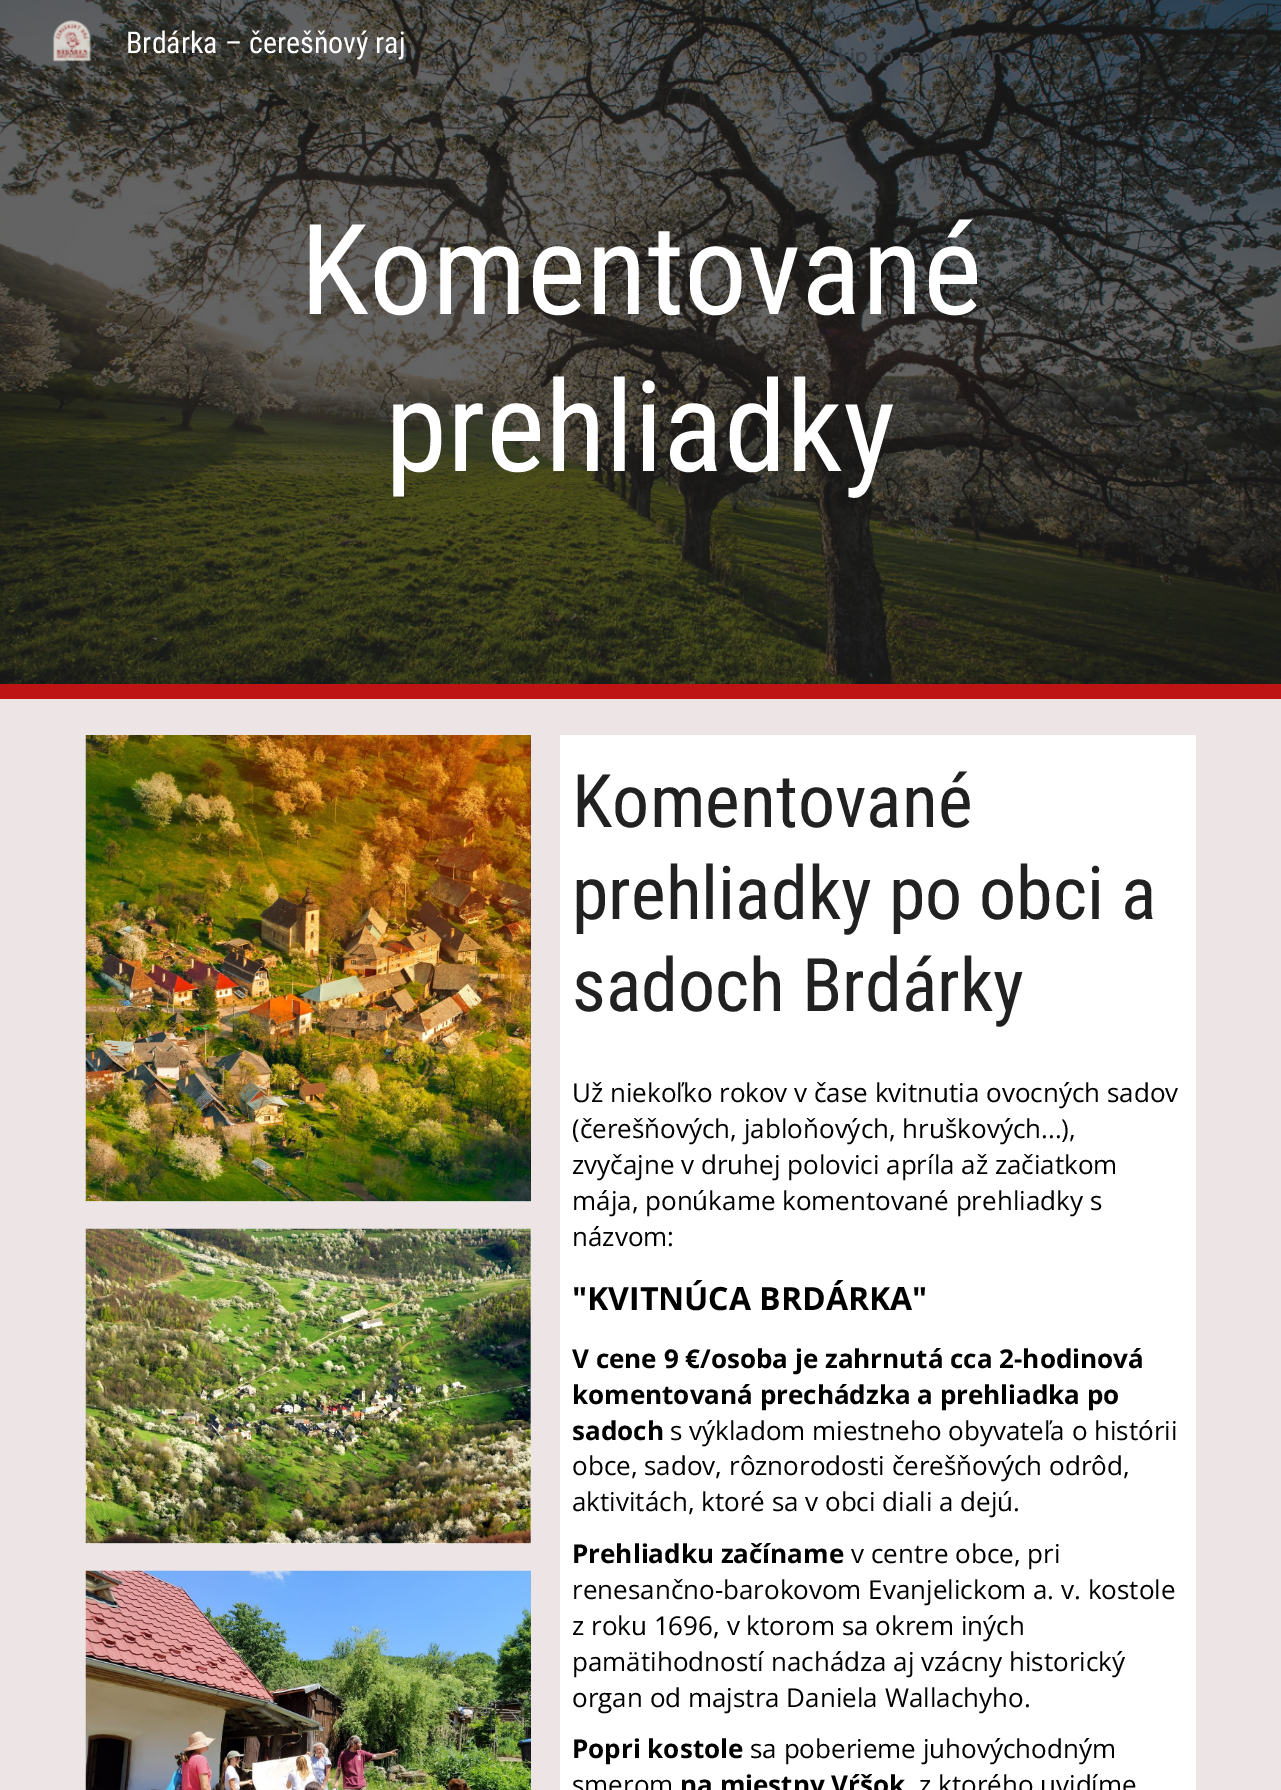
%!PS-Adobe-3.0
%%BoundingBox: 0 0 1281 1790
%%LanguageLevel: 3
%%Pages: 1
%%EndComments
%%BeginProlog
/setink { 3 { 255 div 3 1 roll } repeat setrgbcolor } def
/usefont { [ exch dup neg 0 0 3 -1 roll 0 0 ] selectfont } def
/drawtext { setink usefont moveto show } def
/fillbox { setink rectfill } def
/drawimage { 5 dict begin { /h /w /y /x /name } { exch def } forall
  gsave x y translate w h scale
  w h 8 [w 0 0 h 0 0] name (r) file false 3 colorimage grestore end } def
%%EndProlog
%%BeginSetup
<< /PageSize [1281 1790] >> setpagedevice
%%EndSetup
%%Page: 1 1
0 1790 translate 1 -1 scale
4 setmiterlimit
0 0 1281 1790 237 229 229 fillbox
(assets/img2.rgb) 0 0 1281 684 drawimage
(assets/img1.rgb) 52 20 40 42 drawimage
(Brdárka – čerešňový raj) 126 53 /RobotoCondensed-Regular 30 255 255 255 drawtext
0 684 1281 15 190 20 20 fillbox
(Komentované) 300 314 /RobotoCondensed-Regular 126 255 255 255 drawtext
(prehliadky) 385 471 /RobotoCondensed-Regular 126 255 255 255 drawtext
86 1201 445 1 255 255 255 fillbox
(assets/img3.rgb) 85 735 446 467 drawimage
86 1543 445 1 255 255 255 fillbox
(assets/img4.rgb) 85 1228 446 316 drawimage
(assets/img5.rgb) 85 1570 446 220 drawimage
560 735 636 1055 255 255 255 fillbox
(Komentované) 572 827 /RobotoCondensed-Regular 74 33 33 33 drawtext
(prehliadky po obci a) 572 919 /RobotoCondensed-Regular 74 33 33 33 drawtext
(sadoch Brdárky) 572 1011 /RobotoCondensed-Regular 74 33 33 33 drawtext
(Už niekoľko rokov v čase kvitnutia ovocných sadov) 572 1102 /OpenSans-Regular 26 0 0 0 drawtext
(\(čerešňových, jabloňových, hruškových...\),) 572 1138 /OpenSans-Regular 26 0 0 0 drawtext
(zvyčajne v druhej polovici apríla až začiatkom) 572 1174 /OpenSans-Regular 26 0 0 0 drawtext
(mája, ponúkame komentované prehliadky s) 572 1210 /OpenSans-Regular 26 0 0 0 drawtext
(názvom:) 572 1246 /OpenSans-Regular 26 0 0 0 drawtext
("KVITNÚCA BRDÁRKA") 572 1310 /OpenSans-Bold 32 0 0 0 drawtext
(V cene 9 €/osoba je zahrnutá cca 2-hodinová) 572 1368 /OpenSans-Bold 26 0 0 0 drawtext
(komentovaná prechádzka a prehliadka po) 572 1404 /OpenSans-Bold 26 0 0 0 drawtext
(sadoch) 572 1440 /OpenSans-Bold 26 0 0 0 drawtext
(s výkladom miestneho obyvateľa o histórii) 670 1440 /OpenSans-Regular 26 0 0 0 drawtext
(obce, sadov, rôznorodosti čerešňových odrôd,) 572 1475 /OpenSans-Regular 26 0 0 0 drawtext
(aktivitách, ktoré sa v obci diali a dejú.) 572 1511 /OpenSans-Regular 26 0 0 0 drawtext
(Prehliadku začíname) 572 1563 /OpenSans-Bold 26 0 0 0 drawtext
(v centre obce, pri) 851 1563 /OpenSans-Regular 26 0 0 0 drawtext
(renesančno-barokovom Evanjelickom a. v. kostole) 572 1599 /OpenSans-Regular 26 0 0 0 drawtext
(z roku 1696, v ktorom sa okrem iných) 572 1635 /OpenSans-Regular 26 0 0 0 drawtext
(pamätihodností nachádza aj vzácny historický) 572 1671 /OpenSans-Regular 26 0 0 0 drawtext
(organ od majstra Daniela Wallachyho.) 572 1707 /OpenSans-Regular 26 0 0 0 drawtext
(Popri kostole) 572 1758 /OpenSans-Bold 26 0 0 0 drawtext
(sa poberieme juhovýchodným) 750 1758 /OpenSans-Regular 26 0 0 0 drawtext
(smerom) 572 1794 /OpenSans-Regular 26 0 0 0 drawtext
(na miestny Vŕšok) 680 1794 /OpenSans-Bold 26 0 0 0 drawtext
(z ktorého uvidíme) 919 1794 /OpenSans-Regular 26 0 0 0 drawtext
/GoogleSans-Medium 21 usefont
58 63 68 setink
826 63 moveto 0.25 0 (Skip to navigation) ashow
showpage
%%EOF
